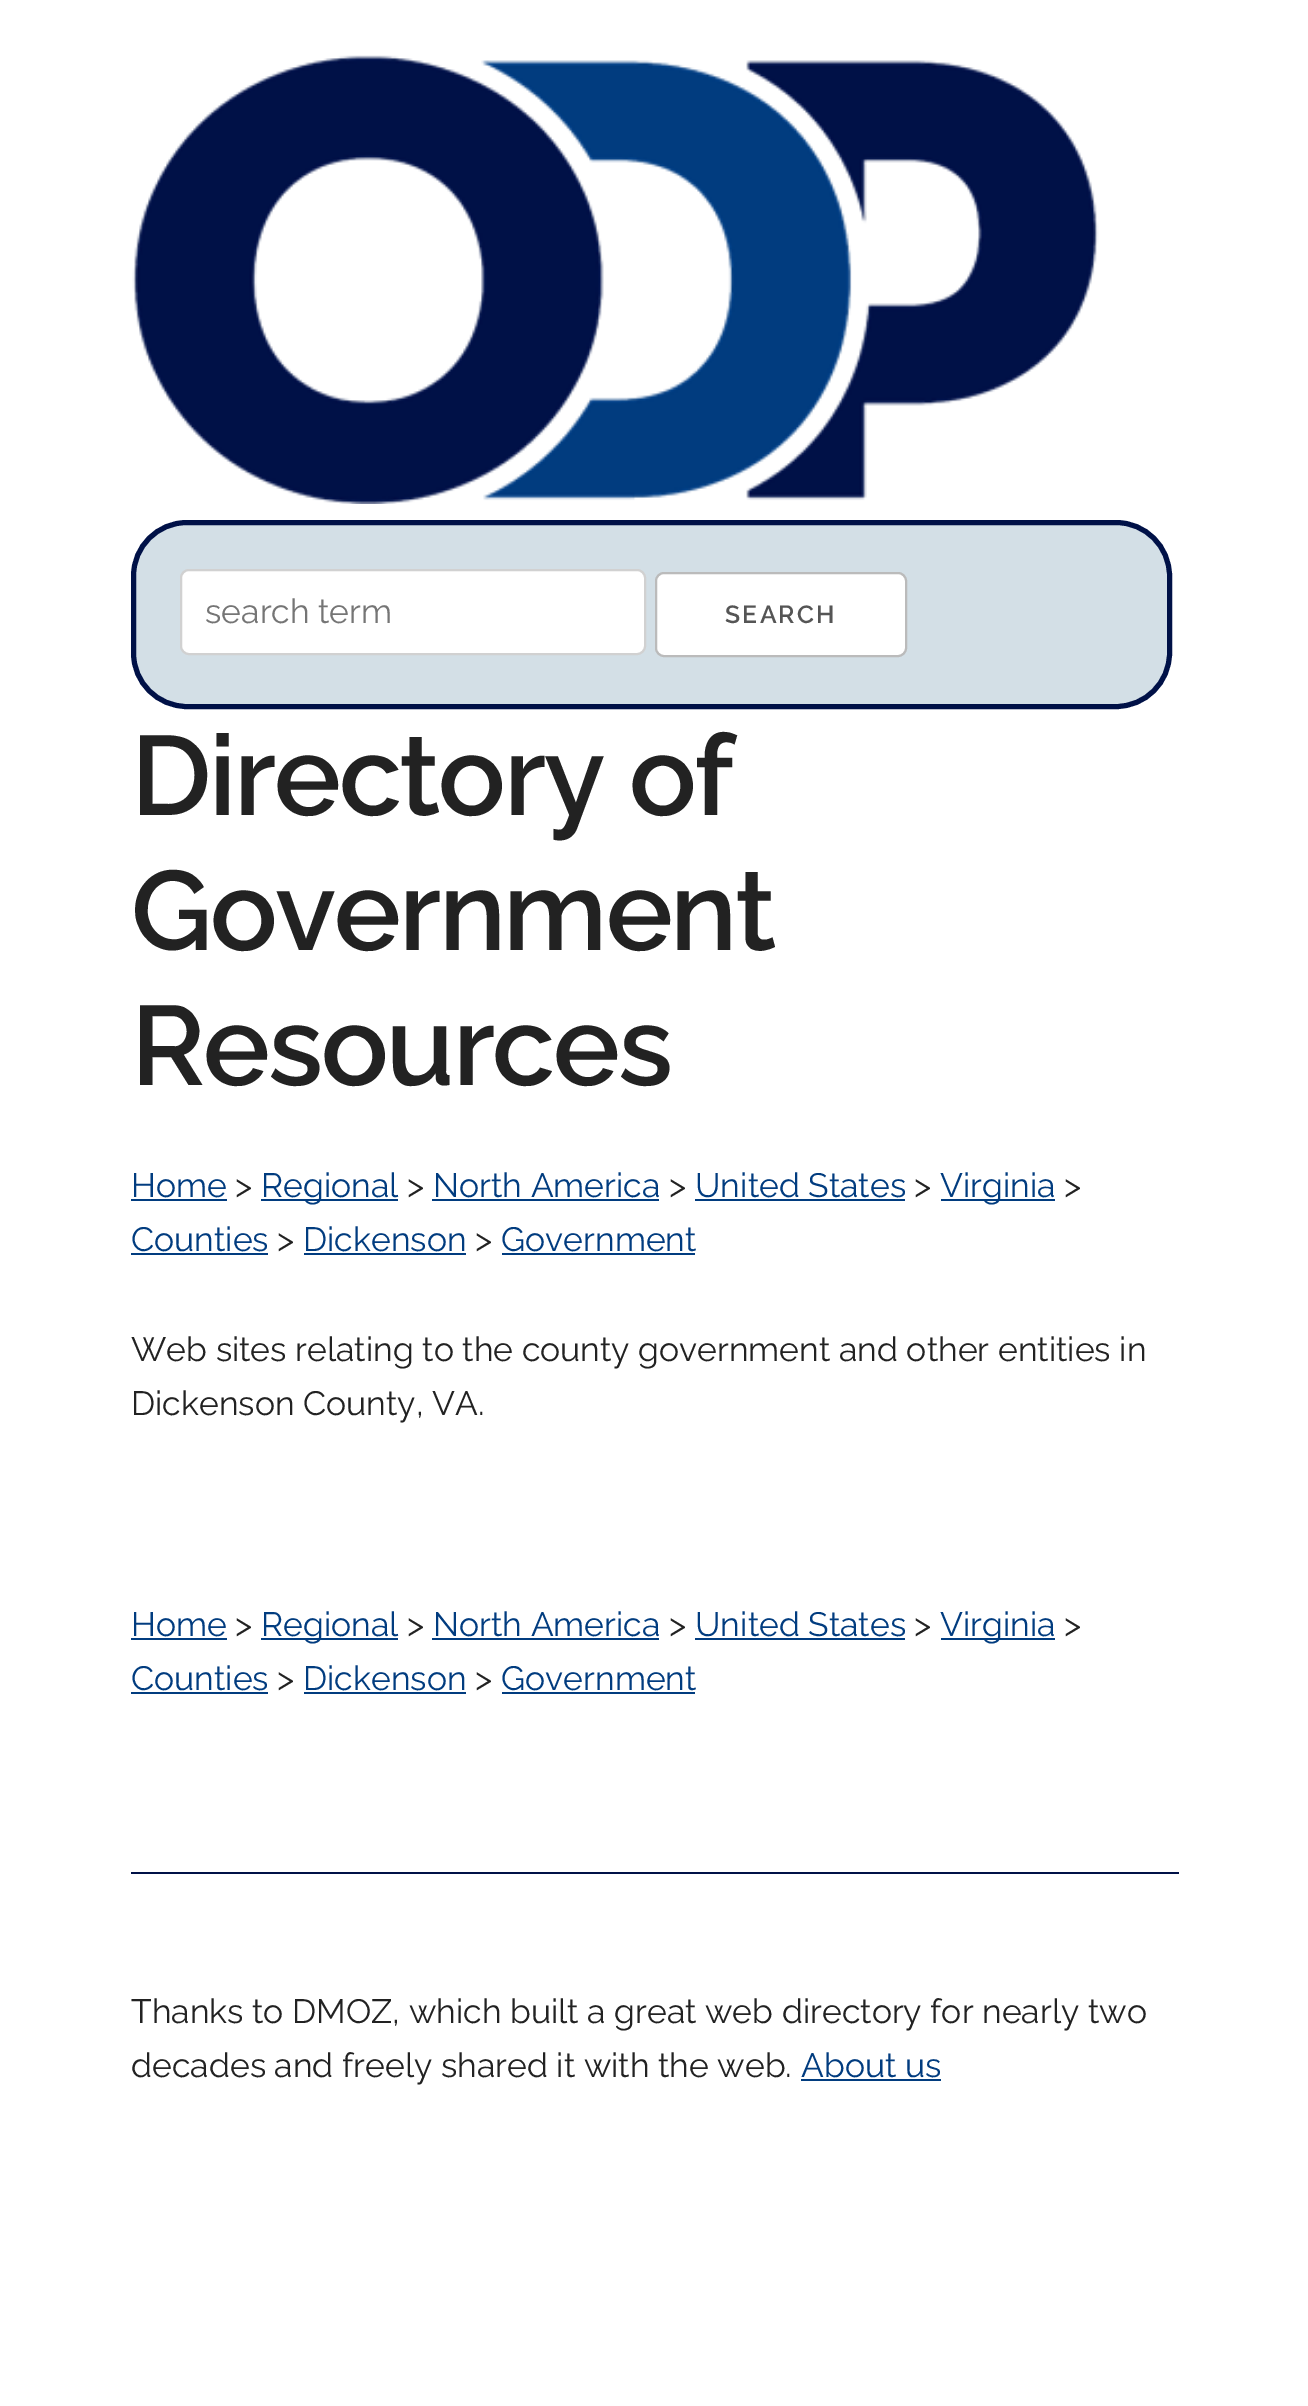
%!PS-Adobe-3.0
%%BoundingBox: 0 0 1308 2406
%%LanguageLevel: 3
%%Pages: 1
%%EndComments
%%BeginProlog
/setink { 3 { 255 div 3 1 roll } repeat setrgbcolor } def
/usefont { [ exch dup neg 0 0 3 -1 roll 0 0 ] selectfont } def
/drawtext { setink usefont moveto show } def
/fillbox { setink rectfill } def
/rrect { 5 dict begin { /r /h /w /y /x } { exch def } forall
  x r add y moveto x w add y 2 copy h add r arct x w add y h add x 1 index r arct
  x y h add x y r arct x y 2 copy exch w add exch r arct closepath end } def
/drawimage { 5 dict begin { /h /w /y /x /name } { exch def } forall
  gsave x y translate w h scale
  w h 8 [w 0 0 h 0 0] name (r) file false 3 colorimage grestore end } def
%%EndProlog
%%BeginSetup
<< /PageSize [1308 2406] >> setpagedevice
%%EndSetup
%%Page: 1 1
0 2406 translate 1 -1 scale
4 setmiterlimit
0 0 1308 2406 255 255 255 fillbox
(assets/img1.rgb) 132 55 967 449 drawimage
211 223 230 setink
133.5 522.5 1036 184 53.5 rrect gsave fill grestore
0 17 71 setink
5 setlinewidth
stroke
255 255 255 setink
181 570 464 84 8 rrect gsave fill grestore
209 209 209 setink
2 setlinewidth
stroke
(search term) 205 623 /Raleway-Regular 33.75 117 117 117 drawtext
255 255 255 setink
656 573 250 83 8 rrect gsave fill grestore
187 187 187 setink
stroke
/Raleway-SemiBold 24.75 usefont
85 85 85 setink
725 623 moveto 2.25 0 (SEARCH) ashow
/Raleway-SemiBold 112.5 usefont
34 34 34 setink
131 815 moveto -2.25 0 (Directory of) ashow
131 950 moveto -2.25 0 (Government) ashow
131 1085 moveto -2.25 0 (Resources) ashow
(Home) 131 1197 /Raleway-Regular 33.75 1 60 127 drawtext
131 1199 96 2 1 60 127 fillbox
(>) 235 1197 /Raleway-Regular 33.75 34 34 34 drawtext
261 1199 137 2 1 60 127 fillbox
(Regional) 261 1197 /Raleway-Regular 33.75 1 60 127 drawtext
(>) 407 1197 /Raleway-Regular 33.75 34 34 34 drawtext
(North America) 433 1197 /Raleway-Regular 33.75 1 60 127 drawtext
432 1199 227 2 1 60 127 fillbox
(>) 669 1197 /Raleway-Regular 33.75 34 34 34 drawtext
(United States) 695 1197 /Raleway-Regular 33.75 1 60 127 drawtext
695 1199 210 2 1 60 127 fillbox
(>) 914 1197 /Raleway-Regular 33.75 34 34 34 drawtext
941 1199 114 2 1 60 127 fillbox
(Virginia) 940 1197 /Raleway-Regular 33.75 1 60 127 drawtext
(>) 1064 1197 /Raleway-Regular 33.75 34 34 34 drawtext
(Counties) 131 1251 /Raleway-Regular 33.75 1 60 127 drawtext
131 1253 137 2 1 60 127 fillbox
(>) 277 1251 /Raleway-Regular 33.75 34 34 34 drawtext
(Dickenson) 303 1251 /Raleway-Regular 33.75 1 60 127 drawtext
304 1253 162 2 1 60 127 fillbox
(>) 475 1251 /Raleway-Regular 33.75 34 34 34 drawtext
(Government) 501 1251 /Raleway-Regular 33.75 1 60 127 drawtext
502 1253 193 2 1 60 127 fillbox
(Web sites relating to the county government and other entities in) 131 1361 /Raleway-Regular 33.75 34 34 34 drawtext
(Dickenson County, VA.) 131 1415 /Raleway-Regular 33.75 34 34 34 drawtext
(Home) 131 1636 /Raleway-Regular 33.75 1 60 127 drawtext
131 1638 96 2 1 60 127 fillbox
(>) 235 1636 /Raleway-Regular 33.75 34 34 34 drawtext
261 1638 137 2 1 60 127 fillbox
(Regional) 261 1636 /Raleway-Regular 33.75 1 60 127 drawtext
(>) 407 1636 /Raleway-Regular 33.75 34 34 34 drawtext
(North America) 433 1636 /Raleway-Regular 33.75 1 60 127 drawtext
432 1638 227 2 1 60 127 fillbox
(>) 669 1636 /Raleway-Regular 33.75 34 34 34 drawtext
(United States) 695 1636 /Raleway-Regular 33.75 1 60 127 drawtext
695 1638 210 2 1 60 127 fillbox
(>) 914 1636 /Raleway-Regular 33.75 34 34 34 drawtext
941 1638 114 2 1 60 127 fillbox
(Virginia) 940 1636 /Raleway-Regular 33.75 1 60 127 drawtext
(>) 1064 1636 /Raleway-Regular 33.75 34 34 34 drawtext
(Counties) 131 1690 /Raleway-Regular 33.75 1 60 127 drawtext
131 1692 137 2 1 60 127 fillbox
(>) 277 1690 /Raleway-Regular 33.75 34 34 34 drawtext
(Dickenson) 303 1690 /Raleway-Regular 33.75 1 60 127 drawtext
304 1692 162 2 1 60 127 fillbox
(>) 475 1690 /Raleway-Regular 33.75 34 34 34 drawtext
(Government) 501 1690 /Raleway-Regular 33.75 1 60 127 drawtext
502 1692 193 2 1 60 127 fillbox
131 1872 1048 2 0 17 71 fillbox
(Thanks to DMOZ, which built a great web directory for nearly two) 131 2023 /Raleway-Regular 33.75 34 34 34 drawtext
(decades and freely shared it with the web.) 131 2077 /Raleway-Regular 33.75 34 34 34 drawtext
(About us) 801 2077 /Raleway-Regular 33.75 1 60 127 drawtext
801 2079 140 2 1 60 127 fillbox
showpage
%%EOF
